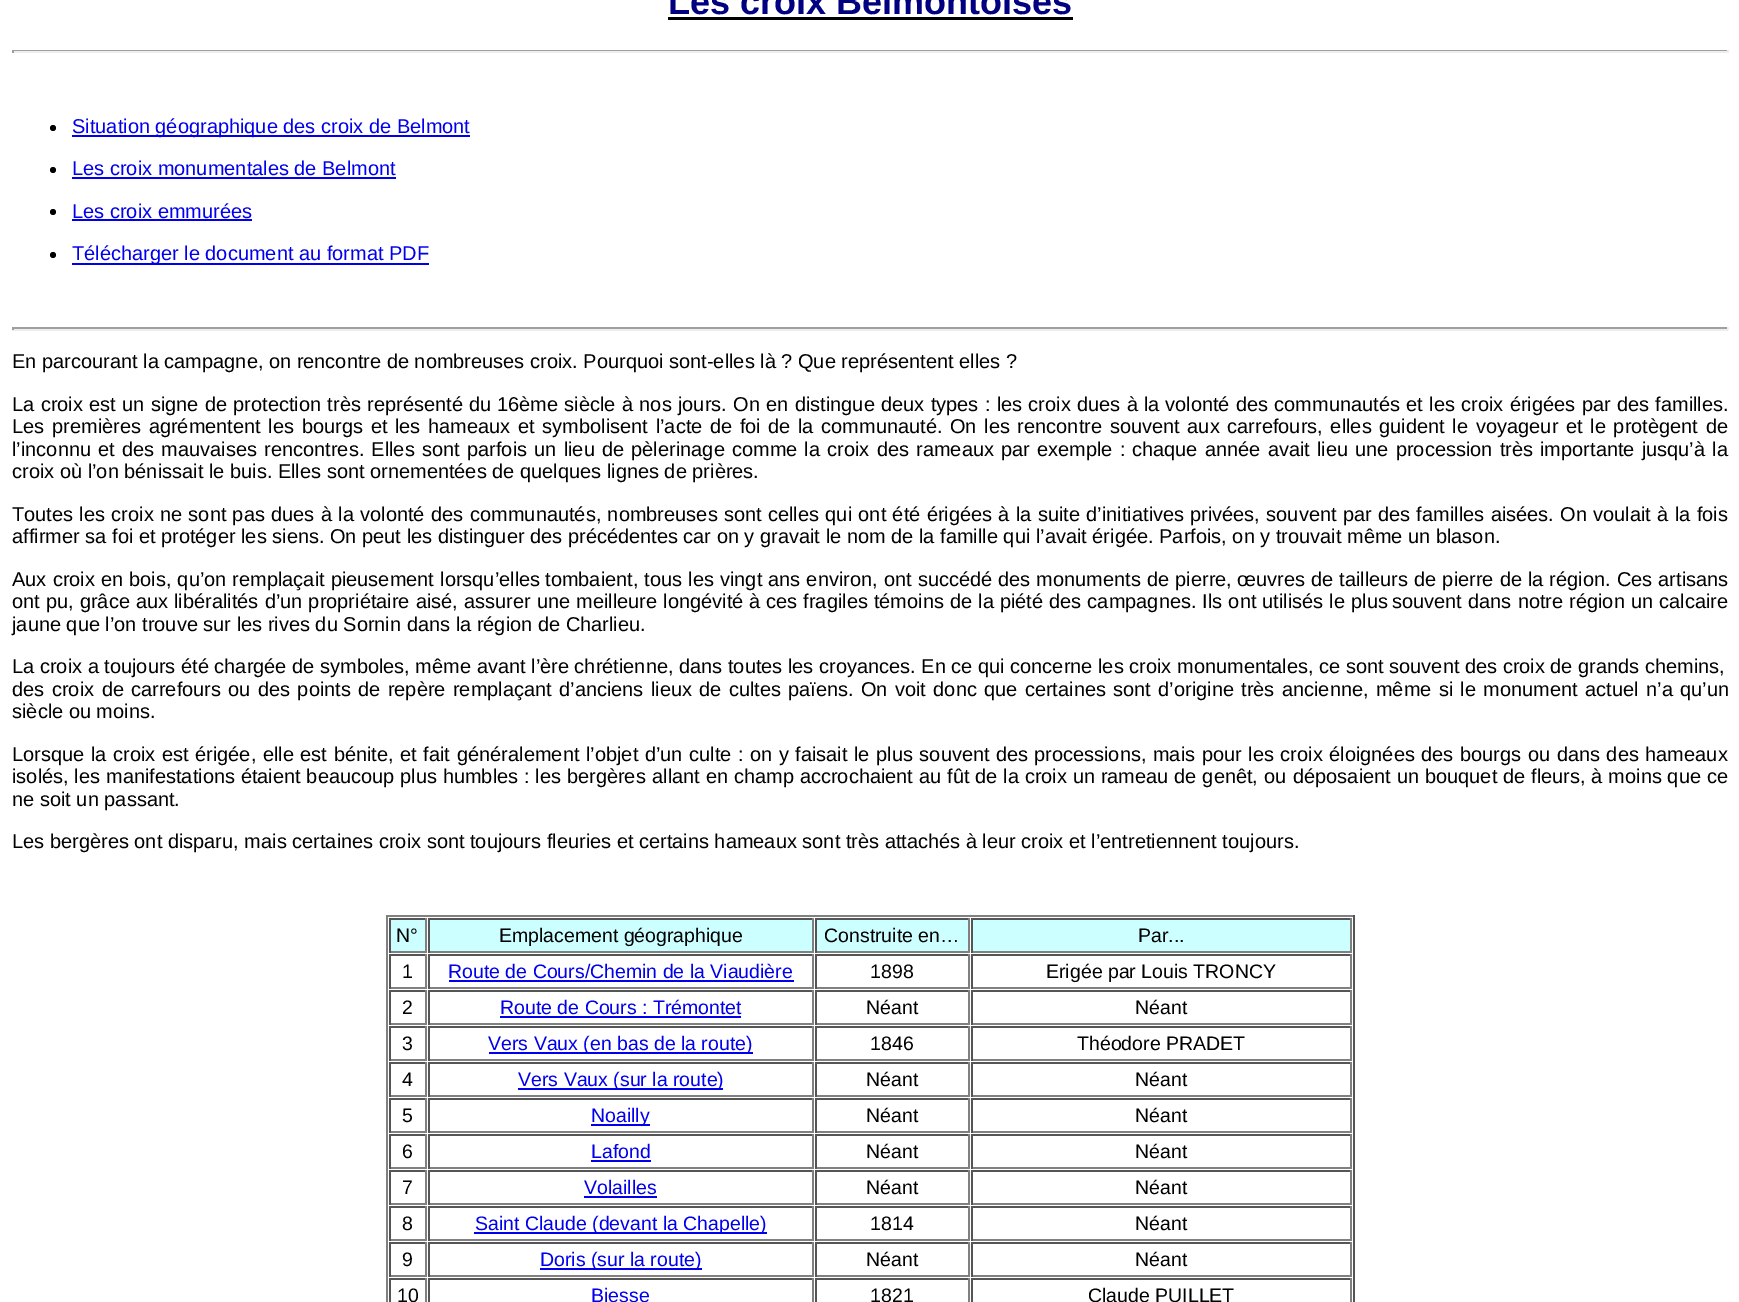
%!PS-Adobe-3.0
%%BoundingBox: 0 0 1739 1302
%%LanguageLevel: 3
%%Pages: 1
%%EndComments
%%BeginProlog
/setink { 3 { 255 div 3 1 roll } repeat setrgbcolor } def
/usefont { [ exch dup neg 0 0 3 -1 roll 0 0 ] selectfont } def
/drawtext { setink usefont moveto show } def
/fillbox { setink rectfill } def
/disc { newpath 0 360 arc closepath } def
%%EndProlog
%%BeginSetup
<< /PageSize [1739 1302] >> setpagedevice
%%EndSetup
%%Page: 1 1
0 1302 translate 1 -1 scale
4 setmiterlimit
0 0 1739 1302 255 255 255 fillbox
(Les croix Belmontoises) 668 14 /LiberationSans-Bold 36 0 0 128 drawtext
668 17 405 3 0 0 0 fillbox
12 50 1716 1 159 159 159 fillbox
1727 50 2 3 238 238 238 fillbox
12 51 1716 2 238 238 238 fillbox
12 50 2 3 159 159 159 fillbox
0 0 0 setink
53 128 3 disc fill
72 135 398 2 0 0 238 fillbox
(Situation géographique des croix de Belmont) 72 133 /LiberationSans-Regular 20 0 0 238 drawtext
0 0 0 setink
53 170 3 disc fill
(Les croix monumentales de Belmont) 72 175 /LiberationSans-Regular 20 0 0 238 drawtext
72 177 324 2 0 0 238 fillbox
0 0 0 setink
53 212 3 disc fill
(Les croix emmurées) 72 218 /LiberationSans-Regular 20 0 0 238 drawtext
72 219 180 2 0 0 238 fillbox
0 0 0 setink
53 255 3 disc fill
72 263 357 2 0 0 238 fillbox
(Télécharger le document au format PDF) 72 260 /LiberationSans-Regular 20 0 0 238 drawtext
12 327 1716 2 159 159 159 fillbox
1727 327 2 3 238 238 238 fillbox
12 329 1716 2 238 238 238 fillbox
12 327 2 3 159 159 159 fillbox
(En parcourant la campagne, on rencontre de nombreuses croix. Pourquoi sont-elles là ? Que représentent elles ?) 12 368 /LiberationSans-Regular 20 0 0 0 drawtext
12 411 moveto 0.75 0 32 (La croix est un signe de protection très représenté du) widthshow
497 411 moveto 0.75 0 32 (16ème siècle à nos jours. On en distingue deux types : les croix dues à la) widthshow
1165 411 moveto 0.75 0 32 (volonté des communautés et les croix érigées par des familles.) widthshow
(Les) 12 433 /LiberationSans-Regular 20 0 0 0 drawtext
52 433 moveto 2.1 0 32 (premières agrémentent les bourgs et les hameaux et symbolisent l’acte de foi) widthshow
768 433 moveto 2.1 0 32 (de la communauté. On les rencontre souvent aux carrefours, elles guident le) widthshow
1476 433 moveto 2.1 0 32 (voyageur et le protègent de) widthshow
12 456 moveto 1.6 0 32 (l’inconnu et des mauvaises rencontres. Elles sont) widthshow
467 456 moveto 1.6 0 32 (parfois un lieu de pèlerinage comme la croix des rameaux par exemple :) widthshow
1132 456 moveto 1.6 0 32 (chaque année avait lieu une procession très importante jusqu’à la) widthshow
(croix où l’on bénissait le buis. Elles sont ornementées de quelques lignes de prières.) 12 478 /LiberationSans-Regular 20 0 0 0 drawtext
12 521 moveto 0.75 0 32 (Toutes les croix ne sont pas dues à la volonté des) widthshow
470 521 moveto 0.75 0 32 (communautés, nombreuses sont celles qui ont été érigées à la suite d’initiatives) widthshow
1190 521 moveto 0.75 0 32 (privées, souvent par des familles aisées. On voulait à la fois) widthshow
(affirmer sa foi et protéger les siens. On peut les distinguer des précédentes car on y gravait le nom de la famille qui l’avait érigée. Parfois, on y trouvait même un blason.) 12 543 /LiberationSans-Regular 20 0 0 0 drawtext
12 586 moveto 0.5 0 32 (Aux croix en bois, qu’on remplaçait pieusement lorsqu’elles) widthshow
545 586 moveto 0.5 0 32 (tombaient, tous les vingt ans environ, ont succédé des monuments de pierre,) widthshow
1237 586 moveto 0.5 0 32 (œuvres de tailleurs de pierre de la région. Ces artisans) widthshow
12 608 moveto 0.5 0 32 (ont pu, grâce aux) widthshow
174 608 moveto 0.5 0 32 (libéralités d’un propriétaire aisé, assurer une meilleure longévité à) widthshow
766 608 moveto 0.5 0 32 (ces fragiles témoins de la piété des campagnes. Ils ont utilisés le plus) widthshow
1392 608 moveto 0.5 0 32 (souvent dans notre région un calcaire) widthshow
(jaune que l’on trouve sur les rives du Sornin dans la région de Charlieu.) 12 631 /LiberationSans-Regular 20 0 0 0 drawtext
(La croix a toujours été chargée de symboles, même avant l’ère chrétienne, dans toutes les croyances. En ce qui concerne les croix monumentales, ce sont souvent des croix de grands chemins,) 12 673 /LiberationSans-Regular 20 0 0 0 drawtext
12 696 moveto 2 0 32 (des croix de) widthshow
131 696 moveto 1.75 0 32 (carrefours ou des points de repère remplaçant d’anciens lieux de cultes) widthshow
788 696 moveto 1.75 0 32 (païens. On voit donc que certaines sont d’origine très ancienne, même si le) widthshow
1483 696 moveto 2 0 32 (monument actuel n’a qu’un) widthshow
(siècle ou moins.) 12 718 /LiberationSans-Regular 20 0 0 0 drawtext
12 761 moveto 1 0 32 (Lorsque la croix est érigée, elle est bénite, et fait) widthshow
457 761 moveto 1 0 32 (généralement l’objet d’un culte : on y faisait le plus souvent des) widthshow
1034 761 moveto 1 0 32 (processions, mais pour les croix éloignées des bourgs ou dans des hameaux) widthshow
12 783 moveto 0.25 0 32 (isolés, les manifestations étaient beaucoup plus humbles : les bergères) widthshow
652 783 moveto 0.3 0 32 (allant en champ accrochaient au fût de la croix un rameau de genêt, ou) widthshow
1293 783 moveto 0.3 0 32 (déposaient un bouquet de fleurs, à moins que ce) widthshow
(ne soit un passant.) 12 806 /LiberationSans-Regular 20 0 0 0 drawtext
(Les bergères ont disparu, mais certaines croix sont toujours fleuries et certains hameaux sont très attachés à leur croix et l’entretiennent toujours.) 12 848 /LiberationSans-Regular 20 0 0 0 drawtext
386 915 969 2 128 128 128 fillbox
1353 915 2 387 85 85 85 fillbox
386 915 2 387 128 128 128 fillbox
391 920 34 31 204 255 255 fillbox
389 918 37 2 85 85 85 fillbox
425 918 2 35 128 128 128 fillbox
389 951 37 2 128 128 128 fillbox
389 918 2 35 85 85 85 fillbox
(N°) 396 942 /LiberationSans-Regular 19.5 0 0 0 drawtext
430 920 382 31 204 255 255 fillbox
428 918 385 2 85 85 85 fillbox
812 918 2 35 128 128 128 fillbox
428 951 385 2 128 128 128 fillbox
428 918 2 35 85 85 85 fillbox
(Emplacement géographique) 499 942 /LiberationSans-Regular 19.5 0 0 0 drawtext
817 920 151 31 204 255 255 fillbox
815 918 154 2 85 85 85 fillbox
968 918 2 35 128 128 128 fillbox
815 951 154 2 128 128 128 fillbox
815 918 2 35 85 85 85 fillbox
(Construite en…) 824 942 /LiberationSans-Regular 19.5 0 0 0 drawtext
973 920 377 31 204 255 255 fillbox
971 918 381 2 85 85 85 fillbox
1350 918 2 35 128 128 128 fillbox
971 951 381 2 128 128 128 fillbox
971 918 2 35 85 85 85 fillbox
(Par...) 1138 942 /LiberationSans-Regular 19.5 0 0 0 drawtext
389 954 37 2 85 85 85 fillbox
425 954 2 35 128 128 128 fillbox
389 987 37 2 128 128 128 fillbox
389 954 2 35 85 85 85 fillbox
(1) 402 978 /LiberationSans-Regular 19.5 0 0 0 drawtext
428 954 385 2 85 85 85 fillbox
812 954 2 35 128 128 128 fillbox
428 987 385 2 128 128 128 fillbox
428 954 2 35 85 85 85 fillbox
(Route de Cours/Chemin de la Viaudière) 448 978 /LiberationSans-Regular 19.5 0 0 238 drawtext
449 980 345 2 0 0 238 fillbox
815 954 154 2 85 85 85 fillbox
968 954 2 35 128 128 128 fillbox
815 987 154 2 128 128 128 fillbox
815 954 2 35 85 85 85 fillbox
(1898) 870 978 /LiberationSans-Regular 19.5 0 0 0 drawtext
971 954 381 2 85 85 85 fillbox
1350 954 2 35 128 128 128 fillbox
971 987 381 2 128 128 128 fillbox
971 954 2 35 85 85 85 fillbox
(Erigée par Louis TRONCY) 1046 978 /LiberationSans-Regular 19.5 0 0 0 drawtext
389 990 37 2 85 85 85 fillbox
425 990 2 35 128 128 128 fillbox
389 1023 37 2 128 128 128 fillbox
389 990 2 35 85 85 85 fillbox
(2) 402 1014 /LiberationSans-Regular 19.5 0 0 0 drawtext
428 990 385 2 85 85 85 fillbox
812 990 2 35 128 128 128 fillbox
428 1023 385 2 128 128 128 fillbox
428 990 2 35 85 85 85 fillbox
(Route de Cours : Trémontet) 500 1014 /LiberationSans-Regular 19.5 0 0 238 drawtext
500 1016 241 2 0 0 238 fillbox
815 990 154 2 85 85 85 fillbox
968 990 2 35 128 128 128 fillbox
815 1023 154 2 128 128 128 fillbox
815 990 2 35 85 85 85 fillbox
(Néant) 866 1014 /LiberationSans-Regular 19.5 0 0 0 drawtext
971 990 381 2 85 85 85 fillbox
1350 990 2 35 128 128 128 fillbox
971 1023 381 2 128 128 128 fillbox
971 990 2 35 85 85 85 fillbox
(Néant) 1135 1014 /LiberationSans-Regular 19.5 0 0 0 drawtext
389 1026 37 2 85 85 85 fillbox
425 1026 2 35 128 128 128 fillbox
389 1059 37 2 128 128 128 fillbox
389 1026 2 35 85 85 85 fillbox
(3) 402 1050 /LiberationSans-Regular 19.5 0 0 0 drawtext
428 1026 385 2 85 85 85 fillbox
812 1026 2 35 128 128 128 fillbox
428 1059 385 2 128 128 128 fillbox
428 1026 2 35 85 85 85 fillbox
489 1052 264 2 0 0 238 fillbox
(Vers Vaux \(en bas de la route\)) 488 1050 /LiberationSans-Regular 19.5 0 0 238 drawtext
815 1026 154 2 85 85 85 fillbox
968 1026 2 35 128 128 128 fillbox
815 1059 154 2 128 128 128 fillbox
815 1026 2 35 85 85 85 fillbox
(1846) 870 1050 /LiberationSans-Regular 19.5 0 0 0 drawtext
971 1026 381 2 85 85 85 fillbox
1350 1026 2 35 128 128 128 fillbox
971 1059 381 2 128 128 128 fillbox
971 1026 2 35 85 85 85 fillbox
(Théodore PRADET) 1077 1050 /LiberationSans-Regular 19.5 0 0 0 drawtext
389 1062 37 2 85 85 85 fillbox
425 1062 2 35 128 128 128 fillbox
389 1095 37 2 128 128 128 fillbox
389 1062 2 35 85 85 85 fillbox
(4) 402 1086 /LiberationSans-Regular 19.5 0 0 0 drawtext
428 1062 385 2 85 85 85 fillbox
812 1062 2 35 128 128 128 fillbox
428 1095 385 2 128 128 128 fillbox
428 1062 2 35 85 85 85 fillbox
518 1088 205 2 0 0 238 fillbox
(Vers Vaux \(sur la route\)) 518 1086 /LiberationSans-Regular 19.5 0 0 238 drawtext
815 1062 154 2 85 85 85 fillbox
968 1062 2 35 128 128 128 fillbox
815 1095 154 2 128 128 128 fillbox
815 1062 2 35 85 85 85 fillbox
(Néant) 866 1086 /LiberationSans-Regular 19.5 0 0 0 drawtext
971 1062 381 2 85 85 85 fillbox
1350 1062 2 35 128 128 128 fillbox
971 1095 381 2 128 128 128 fillbox
971 1062 2 35 85 85 85 fillbox
(Néant) 1135 1086 /LiberationSans-Regular 19.5 0 0 0 drawtext
389 1098 37 2 85 85 85 fillbox
425 1098 2 35 128 128 128 fillbox
389 1131 37 2 128 128 128 fillbox
389 1098 2 35 85 85 85 fillbox
(5) 402 1122 /LiberationSans-Regular 19.5 0 0 0 drawtext
428 1098 385 2 85 85 85 fillbox
812 1098 2 35 128 128 128 fillbox
428 1131 385 2 128 128 128 fillbox
428 1098 2 35 85 85 85 fillbox
591 1124 59 2 0 0 238 fillbox
(Noailly) 591 1122 /LiberationSans-Regular 19.5 0 0 238 drawtext
815 1098 154 2 85 85 85 fillbox
968 1098 2 35 128 128 128 fillbox
815 1131 154 2 128 128 128 fillbox
815 1098 2 35 85 85 85 fillbox
(Néant) 866 1122 /LiberationSans-Regular 19.5 0 0 0 drawtext
971 1098 381 2 85 85 85 fillbox
1350 1098 2 35 128 128 128 fillbox
971 1131 381 2 128 128 128 fillbox
971 1098 2 35 85 85 85 fillbox
(Néant) 1135 1122 /LiberationSans-Regular 19.5 0 0 0 drawtext
389 1134 37 2 85 85 85 fillbox
425 1134 2 35 128 128 128 fillbox
389 1167 37 2 128 128 128 fillbox
389 1134 2 35 85 85 85 fillbox
(6) 402 1158 /LiberationSans-Regular 19.5 0 0 0 drawtext
428 1134 385 2 85 85 85 fillbox
812 1134 2 35 128 128 128 fillbox
428 1167 385 2 128 128 128 fillbox
428 1134 2 35 85 85 85 fillbox
(Lafond) 591 1158 /LiberationSans-Regular 19.5 0 0 238 drawtext
591 1160 60 2 0 0 238 fillbox
815 1134 154 2 85 85 85 fillbox
968 1134 2 35 128 128 128 fillbox
815 1167 154 2 128 128 128 fillbox
815 1134 2 35 85 85 85 fillbox
(Néant) 866 1158 /LiberationSans-Regular 19.5 0 0 0 drawtext
971 1134 381 2 85 85 85 fillbox
1350 1134 2 35 128 128 128 fillbox
971 1167 381 2 128 128 128 fillbox
971 1134 2 35 85 85 85 fillbox
(Néant) 1135 1158 /LiberationSans-Regular 19.5 0 0 0 drawtext
389 1170 37 2 85 85 85 fillbox
425 1170 2 35 128 128 128 fillbox
389 1203 37 2 128 128 128 fillbox
389 1170 2 35 85 85 85 fillbox
(7) 402 1194 /LiberationSans-Regular 19.5 0 0 0 drawtext
428 1170 385 2 85 85 85 fillbox
812 1170 2 35 128 128 128 fillbox
428 1203 385 2 128 128 128 fillbox
428 1170 2 35 85 85 85 fillbox
(Volailles) 584 1194 /LiberationSans-Regular 19.5 0 0 238 drawtext
584 1196 73 2 0 0 238 fillbox
815 1170 154 2 85 85 85 fillbox
968 1170 2 35 128 128 128 fillbox
815 1203 154 2 128 128 128 fillbox
815 1170 2 35 85 85 85 fillbox
(Néant) 866 1194 /LiberationSans-Regular 19.5 0 0 0 drawtext
971 1170 381 2 85 85 85 fillbox
1350 1170 2 35 128 128 128 fillbox
971 1203 381 2 128 128 128 fillbox
971 1170 2 35 85 85 85 fillbox
(Néant) 1135 1194 /LiberationSans-Regular 19.5 0 0 0 drawtext
389 1206 37 2 85 85 85 fillbox
425 1206 2 35 128 128 128 fillbox
389 1239 37 2 128 128 128 fillbox
389 1206 2 35 85 85 85 fillbox
(8) 402 1230 /LiberationSans-Regular 19.5 0 0 0 drawtext
428 1206 385 2 85 85 85 fillbox
812 1206 2 35 128 128 128 fillbox
428 1239 385 2 128 128 128 fillbox
428 1206 2 35 85 85 85 fillbox
474 1232 293 2 0 0 238 fillbox
(Saint Claude \(devant la Chapelle\)) 475 1230 /LiberationSans-Regular 19.5 0 0 238 drawtext
815 1206 154 2 85 85 85 fillbox
968 1206 2 35 128 128 128 fillbox
815 1239 154 2 128 128 128 fillbox
815 1206 2 35 85 85 85 fillbox
(1814) 870 1230 /LiberationSans-Regular 19.5 0 0 0 drawtext
971 1206 381 2 85 85 85 fillbox
1350 1206 2 35 128 128 128 fillbox
971 1239 381 2 128 128 128 fillbox
971 1206 2 35 85 85 85 fillbox
(Néant) 1135 1230 /LiberationSans-Regular 19.5 0 0 0 drawtext
389 1242 37 2 85 85 85 fillbox
425 1242 2 35 128 128 128 fillbox
389 1275 37 2 128 128 128 fillbox
389 1242 2 35 85 85 85 fillbox
(9) 402 1266 /LiberationSans-Regular 19.5 0 0 0 drawtext
428 1242 385 2 85 85 85 fillbox
812 1242 2 35 128 128 128 fillbox
428 1275 385 2 128 128 128 fillbox
428 1242 2 35 85 85 85 fillbox
540 1268 162 2 0 0 238 fillbox
(Doris \(sur la route\)) 540 1266 /LiberationSans-Regular 19.5 0 0 238 drawtext
815 1242 154 2 85 85 85 fillbox
968 1242 2 35 128 128 128 fillbox
815 1275 154 2 128 128 128 fillbox
815 1242 2 35 85 85 85 fillbox
(Néant) 866 1266 /LiberationSans-Regular 19.5 0 0 0 drawtext
971 1242 381 2 85 85 85 fillbox
1350 1242 2 35 128 128 128 fillbox
971 1275 381 2 128 128 128 fillbox
971 1242 2 35 85 85 85 fillbox
(Néant) 1135 1266 /LiberationSans-Regular 19.5 0 0 0 drawtext
389 1278 37 2 85 85 85 fillbox
425 1278 2 24 128 128 128 fillbox
389 1278 2 24 85 85 85 fillbox
(10) 397 1302 /LiberationSans-Regular 19.5 0 0 0 drawtext
428 1278 385 2 85 85 85 fillbox
812 1278 2 24 128 128 128 fillbox
428 1278 2 24 85 85 85 fillbox
(Biesse) 591 1302 /LiberationSans-Regular 19.5 0 0 238 drawtext
815 1278 154 2 85 85 85 fillbox
968 1278 2 24 128 128 128 fillbox
815 1278 2 24 85 85 85 fillbox
(1821) 870 1302 /LiberationSans-Regular 19.5 0 0 0 drawtext
971 1278 381 2 85 85 85 fillbox
1350 1278 2 24 128 128 128 fillbox
971 1278 2 24 85 85 85 fillbox
(Claude PUILLET) 1088 1302 /LiberationSans-Regular 19.5 0 0 0 drawtext
showpage
%%EOF
